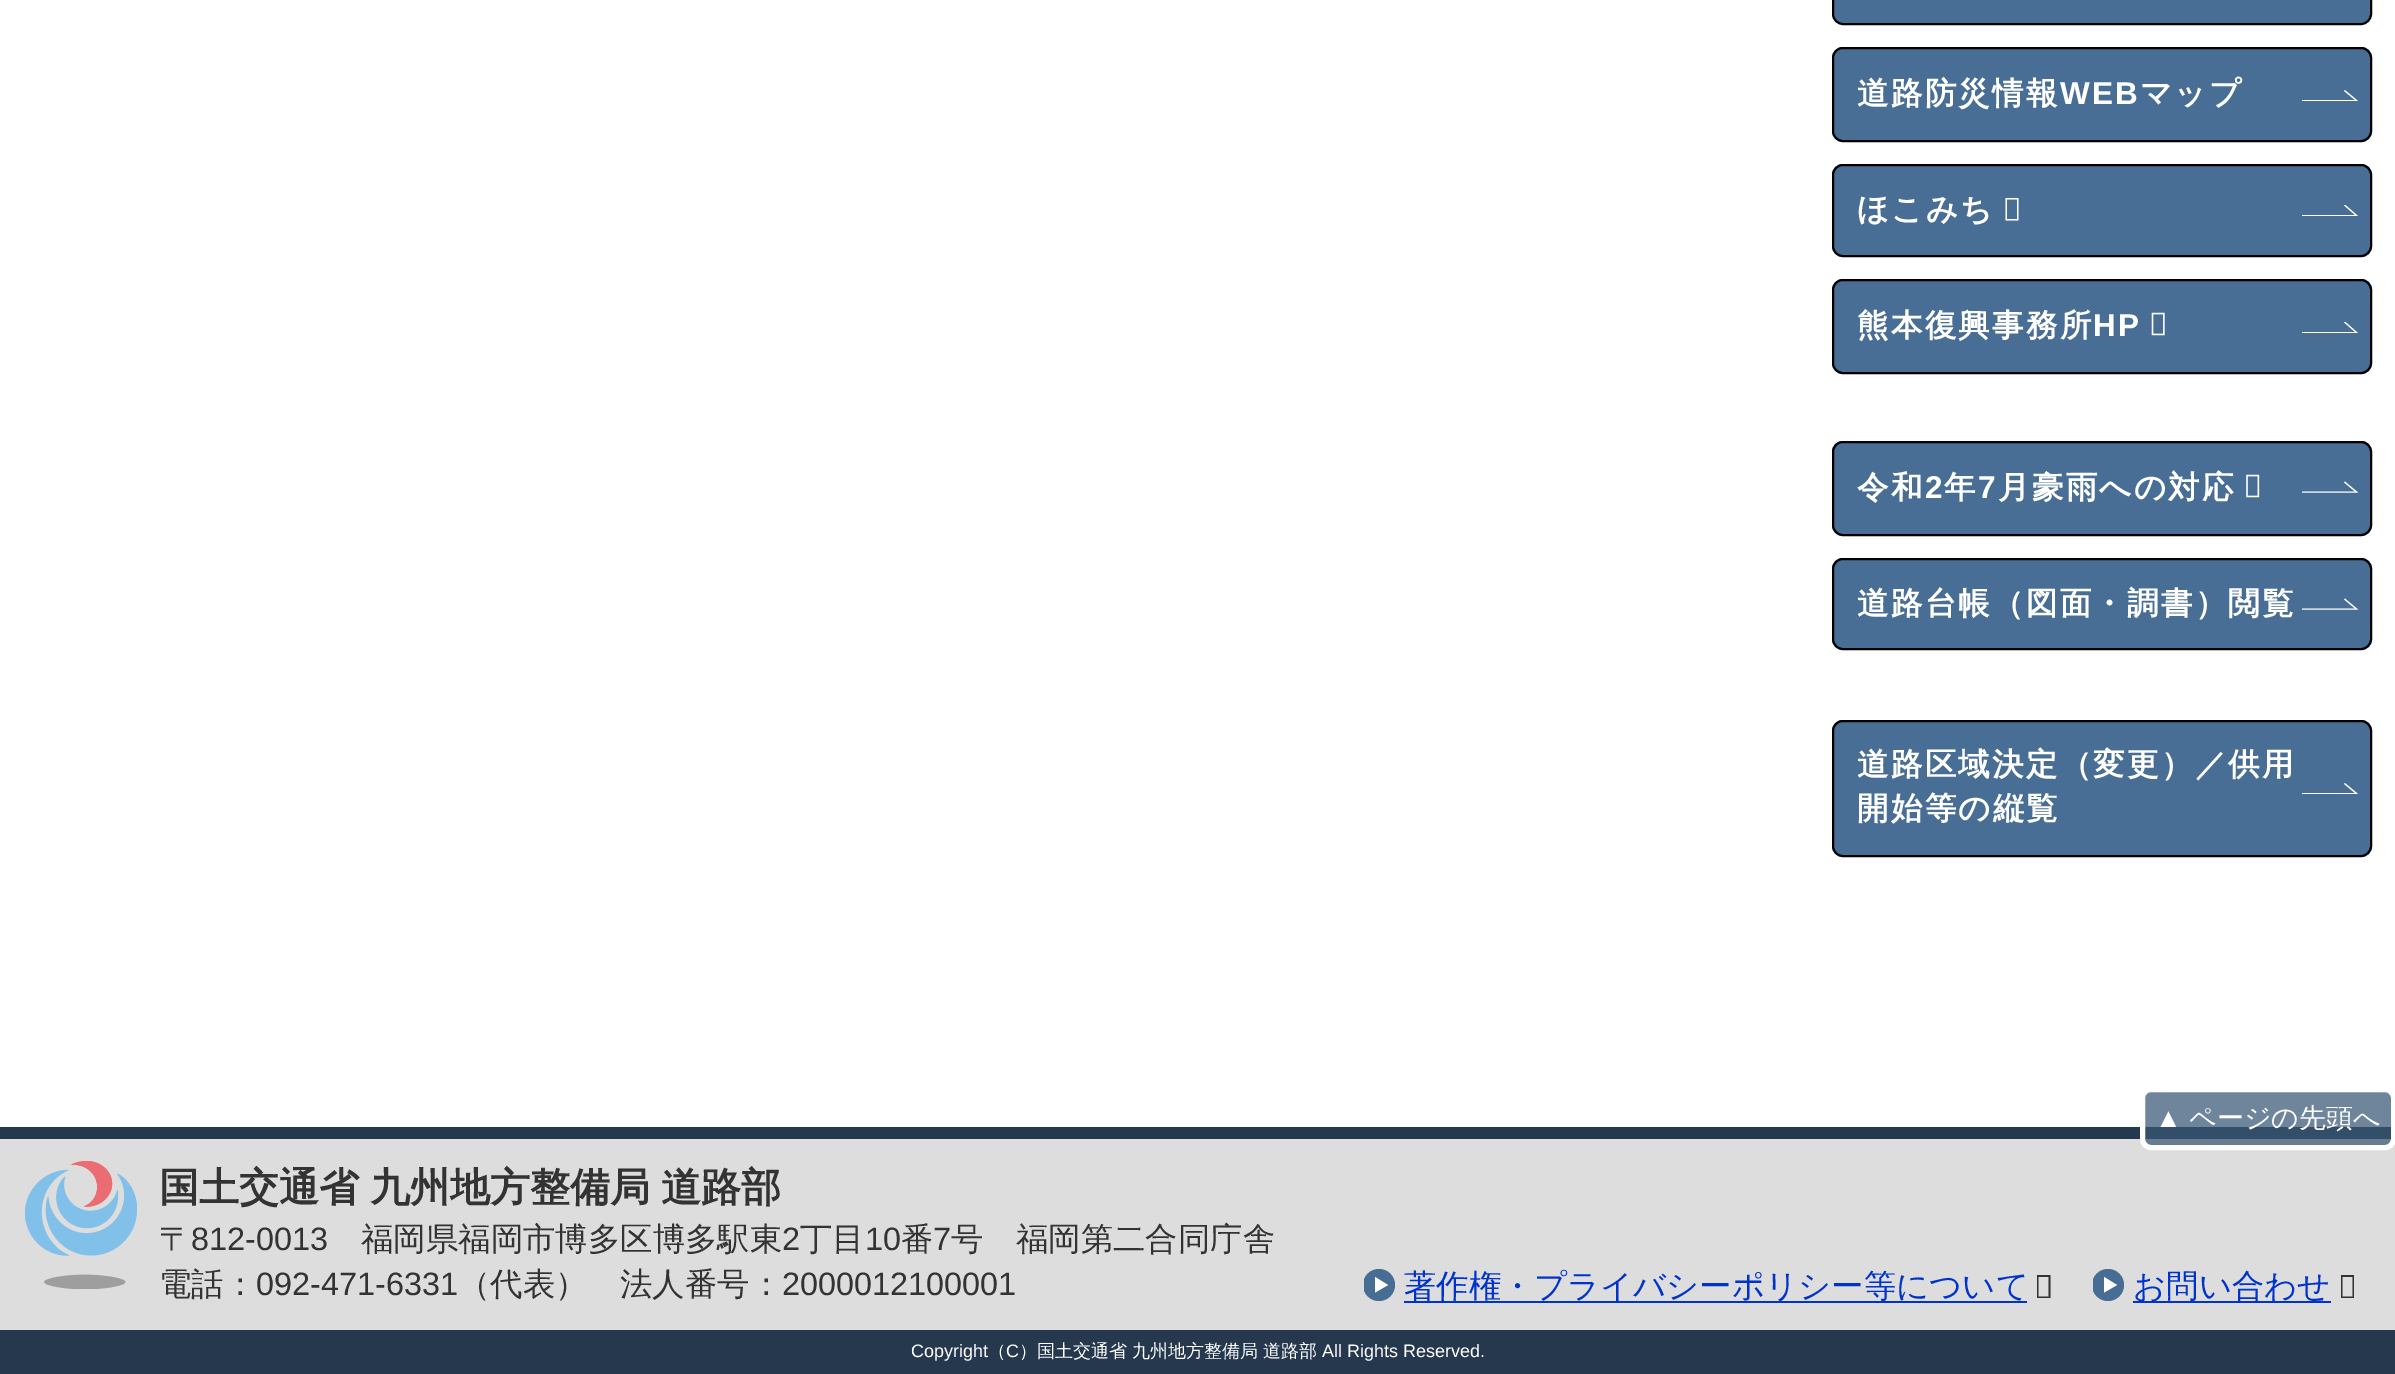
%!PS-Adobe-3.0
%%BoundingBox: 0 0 2395 1374
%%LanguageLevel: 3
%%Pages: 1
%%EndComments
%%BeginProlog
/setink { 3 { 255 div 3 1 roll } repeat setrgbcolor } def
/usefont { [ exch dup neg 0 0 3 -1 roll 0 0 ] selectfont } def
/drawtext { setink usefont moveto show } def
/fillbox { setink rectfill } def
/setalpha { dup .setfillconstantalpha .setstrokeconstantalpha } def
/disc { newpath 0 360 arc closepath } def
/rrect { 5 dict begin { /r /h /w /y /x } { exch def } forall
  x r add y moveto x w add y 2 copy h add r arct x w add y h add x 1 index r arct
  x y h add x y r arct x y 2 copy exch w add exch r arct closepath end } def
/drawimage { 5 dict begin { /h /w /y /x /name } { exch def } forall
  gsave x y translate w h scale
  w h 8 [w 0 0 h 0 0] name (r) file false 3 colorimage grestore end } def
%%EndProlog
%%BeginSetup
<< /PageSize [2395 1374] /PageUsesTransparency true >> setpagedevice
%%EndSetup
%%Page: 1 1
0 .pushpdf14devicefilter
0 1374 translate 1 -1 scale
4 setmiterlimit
0 0 2395 1374 255 255 255 fillbox
72 110 149 setink
1833 -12 538 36 10 rrect gsave fill grestore
0 0 0 setink
2 setlinewidth
stroke
72 110 149 setink
1832 47 540 95 11 rrect fill
gsave
2302 90 56 11 rectclip
255 255 255 setink
1.1 setlinewidth
2344.5 90.5 moveto 2356.5 100.5 lineto 2302 100.5 lineto stroke
grestore
0 0 0 setink
1833 48 538 93 10 rrect stroke
/WenQuanYiZenHei-Bold 31.5 usefont
255 255 255 setink
1857 104 moveto 2.25 0 (道路防災情報) ashow
/LiberationSans-Bold 31.5 usefont
2060 104 moveto 2.25 0 (WEB) ashow
/WenQuanYiZenHei-Bold 31.5 usefont
2140 104 moveto 2.25 0 (マップ) ashow
72 110 149 setink
1832 164 540 93 11 rrect fill
gsave
2302 205 56 11 rectclip
255 255 255 setink
1.1 setlinewidth
2344.5 205 moveto 2356.5 215.5 lineto 2302 215.5 lineto stroke
grestore
0 0 0 setink
1833 165 538 91 10 rrect stroke
255 255 255 setink
1857 220 moveto 2.25 0 (ほこみち) ashow
2005.5 220.5 moveto 2005.5 198 lineto 2018.5 198 lineto 2018.5 220.5 lineto closepath 2007 219 moveto 2017 219 lineto 2017 199.5 lineto 2007 199.5 lineto closepath fill
72 110 149 setink
1832 279 540 95 11 rrect fill
gsave
2302 322 56 11 rectclip
255 255 255 setink
1.1 setlinewidth
2344.5 322 moveto 2356.5 332.5 lineto 2302 332.5 lineto stroke
grestore
0 0 0 setink
1833 280 538 93 10 rrect stroke
255 255 255 setink
1857 336 moveto 2.25 0 (熊本復興事務所) ashow
/LiberationSans-Bold 31.5 usefont
2093 336 moveto 2.25 0 (HP) ashow
(assets/img1.rgb) 2151 312 14 24 drawimage
72 110 149 setink
1832 441 540 95 11 rrect fill
255 255 255 setink
1.1 setlinewidth
2344.5 482 moveto 2356.5 492 lineto 2302 492 lineto stroke
0 0 0 setink
2 setlinewidth
1833 442 538 93 10 rrect stroke
/WenQuanYiZenHei-Bold 31.5 usefont
255 255 255 setink
1857 498 moveto 2.25 0 (令和) ashow
/LiberationSans-Bold 31.5 usefont
1925 498 moveto 2.25 0 (2) ashow
/WenQuanYiZenHei-Bold 31.5 usefont
1944 498 moveto 2.25 0 (年) ashow
/LiberationSans-Bold 31.5 usefont
1978 498 moveto 2.25 0 (7) ashow
/WenQuanYiZenHei-Bold 31.5 usefont
1998 498 moveto 2.25 0 (月豪雨への対応) ashow
(assets/img2.rgb) 2246 474 14 24 drawimage
72 110 149 setink
1832 558 540 92 11 rrect fill
255 255 255 setink
1.1 setlinewidth
2344.5 599 moveto 2356.5 609 lineto 2302 609 lineto stroke
0 0 0 setink
2 setlinewidth
1833 559 538 90 10 rrect stroke
255 255 255 setink
1857 614 moveto 2.25 0 (道路台帳（図面・調書）閲覧) ashow
72 110 149 setink
1832 720 540 137 11 rrect fill
gsave
2302 783 56 11 rectclip
255 255 255 setink
1.1 setlinewidth
2344.5 783.5 moveto 2356.5 793.5 lineto 2302 793.5 lineto stroke
grestore
0 0 0 setink
1833 721 538 135 10 rrect stroke
255 255 255 setink
1857 775 moveto 2.25 0 (道路区域決定（変更）／供用) ashow
1857 819 moveto 2.25 0 (開始等の縦覧) ashow
0 1139 2395 191 221 221 221 fillbox
0 1127 2391 12 37 57 78 fillbox
0.72 setalpha
56 86 116 setink
2142.5 1089.5 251 58 8.5 rrect fill
1 setalpha
255 255 255 setink
5 setlinewidth
2142.5 1089.5 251 58 8.5 rrect stroke
(▲) 2155 1127 /LiberationSans-Regular 27 255 255 255 drawtext
(ページの先頭へ) 2189 1127 /WenQuanYiZenHei-Medium 27 255 255 255 drawtext
(assets/img3.rgb) 25 1161 112 128 drawimage
/WenQuanYiZenHei-Bold 40 usefont
51 51 51 setink
159 1201 moveto -1 0 32 (国土交通省 九州地方整備局 道路部) widthshow
(〒) 159 1250 /WenQuanYiZenHei-Medium 32.4 51 51 51 drawtext
(812-0013) 191 1250 /LiberationSans-Regular 32.4 51 51 51 drawtext
(福岡県福岡市博多区博多駅東) 361 1250 /WenQuanYiZenHei-Medium 32.4 51 51 51 drawtext
(2) 782 1250 /LiberationSans-Regular 32.4 51 51 51 drawtext
(丁目) 800 1250 /WenQuanYiZenHei-Medium 32.4 51 51 51 drawtext
(10) 865 1250 /LiberationSans-Regular 32.4 51 51 51 drawtext
(番) 901 1250 /WenQuanYiZenHei-Medium 32.4 51 51 51 drawtext
(7) 933 1250 /LiberationSans-Regular 32.4 51 51 51 drawtext
(号　福岡第二合同庁舎) 951 1250 /WenQuanYiZenHei-Medium 32.4 51 51 51 drawtext
(電話：) 159 1295 /WenQuanYiZenHei-Medium 32.4 51 51 51 drawtext
(092-471-6331) 256 1295 /LiberationSans-Regular 32.4 51 51 51 drawtext
(（代表）) 458 1295 /WenQuanYiZenHei-Medium 32.4 51 51 51 drawtext
(法人番号：) 620 1295 /WenQuanYiZenHei-Medium 32.4 51 51 51 drawtext
(2000012100001) 782 1295 /LiberationSans-Regular 32.4 51 51 51 drawtext
gsave
1364 1269 31 32 rectclip
72 109 148 setink
1379 1285 16 disc fill
grestore
255 255 255 setink
1375 1285 moveto 1375 1292.5 lineto 1388 1285 lineto 1375 1277 lineto closepath fill
1404 1301 623 2 0 51 204 fillbox
(著作権・プライバシーポリシー等について) 1404 1297 /WenQuanYiZenHei-Medium 32.4 0 51 204 drawtext
51 51 51 setink
2037 1298 moveto 2037 1275 lineto 2050.5 1275 lineto 2050.5 1298 lineto closepath 2038.5 1296.5 moveto 2048.5 1296.5 lineto 2048.5 1277 lineto 2038.5 1277 lineto closepath fill
gsave
2093 1269 31 32 rectclip
72 109 148 setink
2108 1285 16 disc fill
grestore
255 255 255 setink
2104 1285 moveto 2104 1292.5 lineto 2117 1285 lineto 2104 1277 lineto closepath fill
2133 1301 198 2 0 51 204 fillbox
(お問い合わせ) 2133 1297 /WenQuanYiZenHei-Medium 32.4 0 51 204 drawtext
51 51 51 setink
2341 1298 moveto 2341 1275 lineto 2354 1275 lineto 2354 1298 lineto closepath 2342.5 1296.5 moveto 2352.5 1296.5 lineto 2352.5 1277 lineto 2342.5 1277 lineto closepath fill
0 1330 2395 44 37 56 77 fillbox
(Copyright) 911 1357 /LiberationSans-Regular 18 255 255 255 drawtext
(（) 988 1357 /WenQuanYiZenHei-Medium 18 255 255 255 drawtext
(C) 1006 1357 /LiberationSans-Regular 18 255 255 255 drawtext
(）国土交通省) 1019 1357 /WenQuanYiZenHei-Medium 18 255 255 255 drawtext
(九州地方整備局) 1132 1357 /WenQuanYiZenHei-Medium 18 255 255 255 drawtext
(道路部) 1263 1357 /WenQuanYiZenHei-Medium 18 255 255 255 drawtext
(All Rights Reserved.) 1322 1357 /LiberationSans-Regular 18 255 255 255 drawtext
.poppdf14devicefilter showpage
%%EOF
